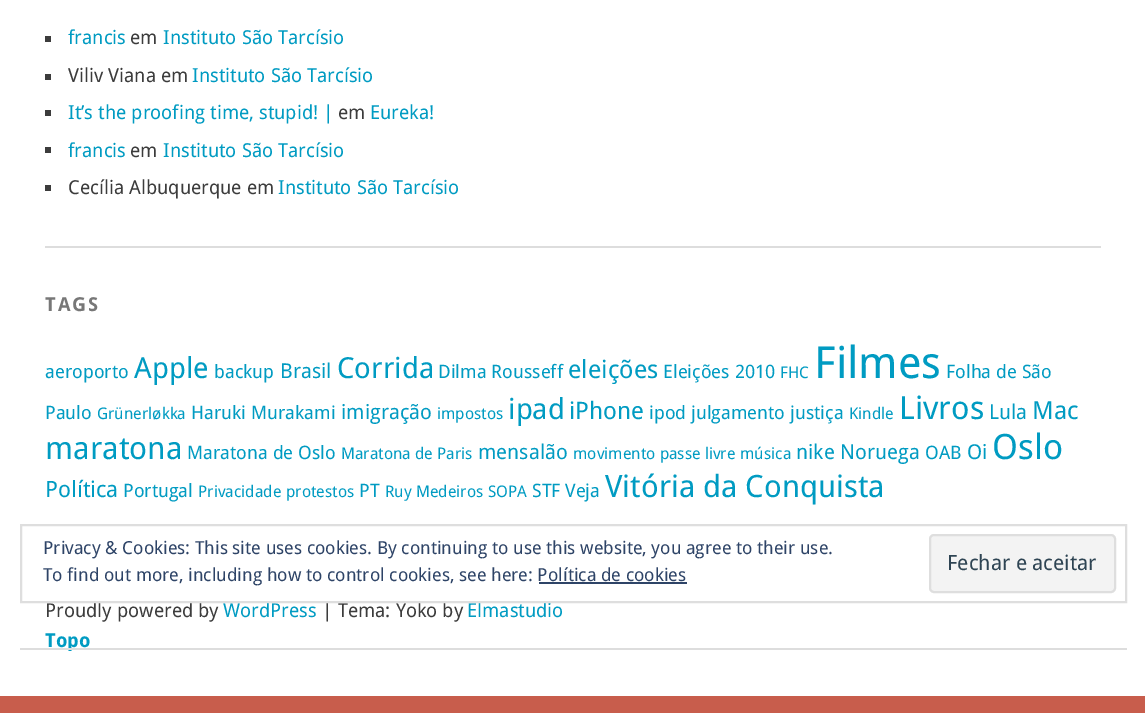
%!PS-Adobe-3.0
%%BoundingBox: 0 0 1145 713
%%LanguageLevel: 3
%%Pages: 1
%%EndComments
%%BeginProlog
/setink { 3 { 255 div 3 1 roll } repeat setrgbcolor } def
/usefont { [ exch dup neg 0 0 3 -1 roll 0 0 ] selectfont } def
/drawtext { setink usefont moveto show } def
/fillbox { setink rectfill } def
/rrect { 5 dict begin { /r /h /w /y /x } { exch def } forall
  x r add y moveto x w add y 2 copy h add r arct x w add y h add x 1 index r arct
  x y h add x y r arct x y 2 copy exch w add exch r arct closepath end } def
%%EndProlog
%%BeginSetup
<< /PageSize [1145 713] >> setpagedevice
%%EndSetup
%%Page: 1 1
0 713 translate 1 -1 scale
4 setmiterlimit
0 0 1145 713 200 93 76 fillbox
0 0 1145 696 255 255 255 fillbox
45 246 1056 2 221 221 221 fillbox
45 36 6 6 60 60 60 fillbox
(francis) 68 44 /DroidSans-Regular 19.25 0 155 194 drawtext
(em) 130 44 /DroidSans-Regular 19.25 60 60 60 drawtext
(Instituto São Tarcísio) 163 44 /DroidSans-Regular 19.25 0 155 194 drawtext
45 74 6 6 60 60 60 fillbox
(Viliv Viana em) 68 82 /DroidSans-Regular 19.25 60 60 60 drawtext
(Instituto São Tarcísio) 192 82 /DroidSans-Regular 19.25 0 155 194 drawtext
45 110 6 6 60 60 60 fillbox
(It’s the proofing time, stupid! |) 68 119 /DroidSans-Regular 19.25 0 155 194 drawtext
(em) 338 119 /DroidSans-Regular 19.25 60 60 60 drawtext
(Eureka!) 370 119 /DroidSans-Regular 19.25 0 155 194 drawtext
45 147 6 6 60 60 60 fillbox
(francis) 68 157 /DroidSans-Regular 19.25 0 155 194 drawtext
(em) 130 157 /DroidSans-Regular 19.25 60 60 60 drawtext
(Instituto São Tarcísio) 163 157 /DroidSans-Regular 19.25 0 155 194 drawtext
45 185 6 6 60 60 60 fillbox
(Cecília Albuquerque em) 68 194 /DroidSans-Regular 19.25 60 60 60 drawtext
(Instituto São Tarcísio) 278 194 /DroidSans-Regular 19.25 0 155 194 drawtext
/DroidSans-Bold 19.25 usefont
119 119 119 setink
45 311 moveto 2 0 (TAGS) ashow
(aeroporto) 45 378 /DroidSans-Regular 18.5 0 155 194 drawtext
(Apple) 134 378 /DroidSans-Regular 29 0 155 194 drawtext
(backup) 214 378 /DroidSans-Regular 18.5 0 155 194 drawtext
(Brasil) 280 378 /DroidSans-Regular 20.5 0 155 194 drawtext
(Corrida) 337 378 /DroidSans-Regular 29 0 155 194 drawtext
(Dilma Rousseff) 438 378 /DroidSans-Regular 18.5 0 155 194 drawtext
(eleições) 568 378 /DroidSans-Regular 25 0 155 194 drawtext
(Eleições 2010) 663 378 /DroidSans-Regular 18.5 0 155 194 drawtext
(FHC) 780 378 /DroidSans-Regular 16 0 155 194 drawtext
(Filmes) 814 378 /DroidSans-Regular 44 0 155 194 drawtext
(Folha de São) 946 378 /DroidSans-Regular 18.5 0 155 194 drawtext
(Paulo) 45 419 /DroidSans-Regular 18.5 0 155 194 drawtext
(Grünerløkka) 97 419 /DroidSans-Regular 16 0 155 194 drawtext
(Haruki Murakami) 191 419 /DroidSans-Regular 18.5 0 155 194 drawtext
(imigração) 341 419 /DroidSans-Regular 20.5 0 155 194 drawtext
(impostos) 437 419 /DroidSans-Regular 16 0 155 194 drawtext
(ipad) 508 419 /DroidSans-Regular 29 0 155 194 drawtext
(iPhone) 569 419 /DroidSans-Regular 24 0 155 194 drawtext
(ipod julgamento justiça) 649 419 /DroidSans-Regular 18.5 0 155 194 drawtext
(Kindle) 849 419 /DroidSans-Regular 16 0 155 194 drawtext
(Livros) 899 419 /DroidSans-Regular 32 0 155 194 drawtext
(Lula) 989 419 /DroidSans-Regular 20.5 0 155 194 drawtext
(Mac) 1032 419 /DroidSans-Regular 25 0 155 194 drawtext
(maratona) 45 459 /DroidSans-Regular 31.25 0 155 194 drawtext
(Maratona de Oslo) 187 459 /DroidSans-Regular 18.5 0 155 194 drawtext
(Maratona de Paris) 341 459 /DroidSans-Regular 16 0 155 194 drawtext
(mensalão) 478 459 /DroidSans-Regular 20.5 0 155 194 drawtext
(movimento passe livre) 573 459 /DroidSans-Regular 16 0 155 194 drawtext
(música) 740 459 /DroidSans-Regular 16 0 155 194 drawtext
(nike) 796 459 /DroidSans-Regular 20.5 0 155 194 drawtext
(Noruega) 840 459 /DroidSans-Regular 20.5 0 155 194 drawtext
(OAB) 925 459 /DroidSans-Regular 18.5 0 155 194 drawtext
(Oi) 967 459 /DroidSans-Regular 20.5 0 155 194 drawtext
(Oslo) 992 459 /DroidSans-Regular 35 0 155 194 drawtext
(Política) 45 497 /DroidSans-Regular 22.5 0 155 194 drawtext
(Portugal) 123 497 /DroidSans-Regular 18.5 0 155 194 drawtext
(Privacidade) 198 497 /DroidSans-Regular 16 0 155 194 drawtext
(protestos) 286 497 /DroidSans-Regular 16 0 155 194 drawtext
(PT) 359 497 /DroidSans-Regular 18.5 0 155 194 drawtext
(Ruy Medeiros) 385 497 /DroidSans-Regular 16 0 155 194 drawtext
(SOPA) 488 497 /DroidSans-Regular 16 0 155 194 drawtext
(STF Veja) 532 497 /DroidSans-Regular 18.5 0 155 194 drawtext
(Vitória da Conquista) 605 497 /DroidSans-Regular 30.75 0 155 194 drawtext
(Proudly powered by) 45 617 /DroidSans-Regular 19.25 60 60 60 drawtext
(WordPress) 223 617 /DroidSans-Regular 19.25 0 155 194 drawtext
(| Tema: Yoko by) 322 617 /DroidSans-Regular 19.25 60 60 60 drawtext
(Elmastudio) 467 617 /DroidSans-Regular 19.25 0 155 194 drawtext
gsave
45 551 740 100 rectclip
(Topo) 45 647 /DroidSans-Bold 19.25 0 155 194 drawtext
grestore
20 648 1107 2 221 221 221 fillbox
222 222 222 setink
2 setlinewidth
21 525 1105 77 rectstroke
(Privacy & Cookies: This site uses cookies. By continuing to use this website, you agree to their use.) 43 554 /DroidSans-Regular 18 46 68 103 drawtext
243 243 243 setink
930 535 185 57 4 rrect gsave fill grestore
222 222 222 setink
stroke
(Fechar e aceitar) 947 570 /DroidSans-Regular 21 46 68 83 drawtext
(To find out more, including how to control cookies, see here: Política de cookies) 43 581 /DroidSans-Regular 18 46 68 103 drawtext
539 582 148 2 46 68 103 fillbox
showpage
%%EOF
